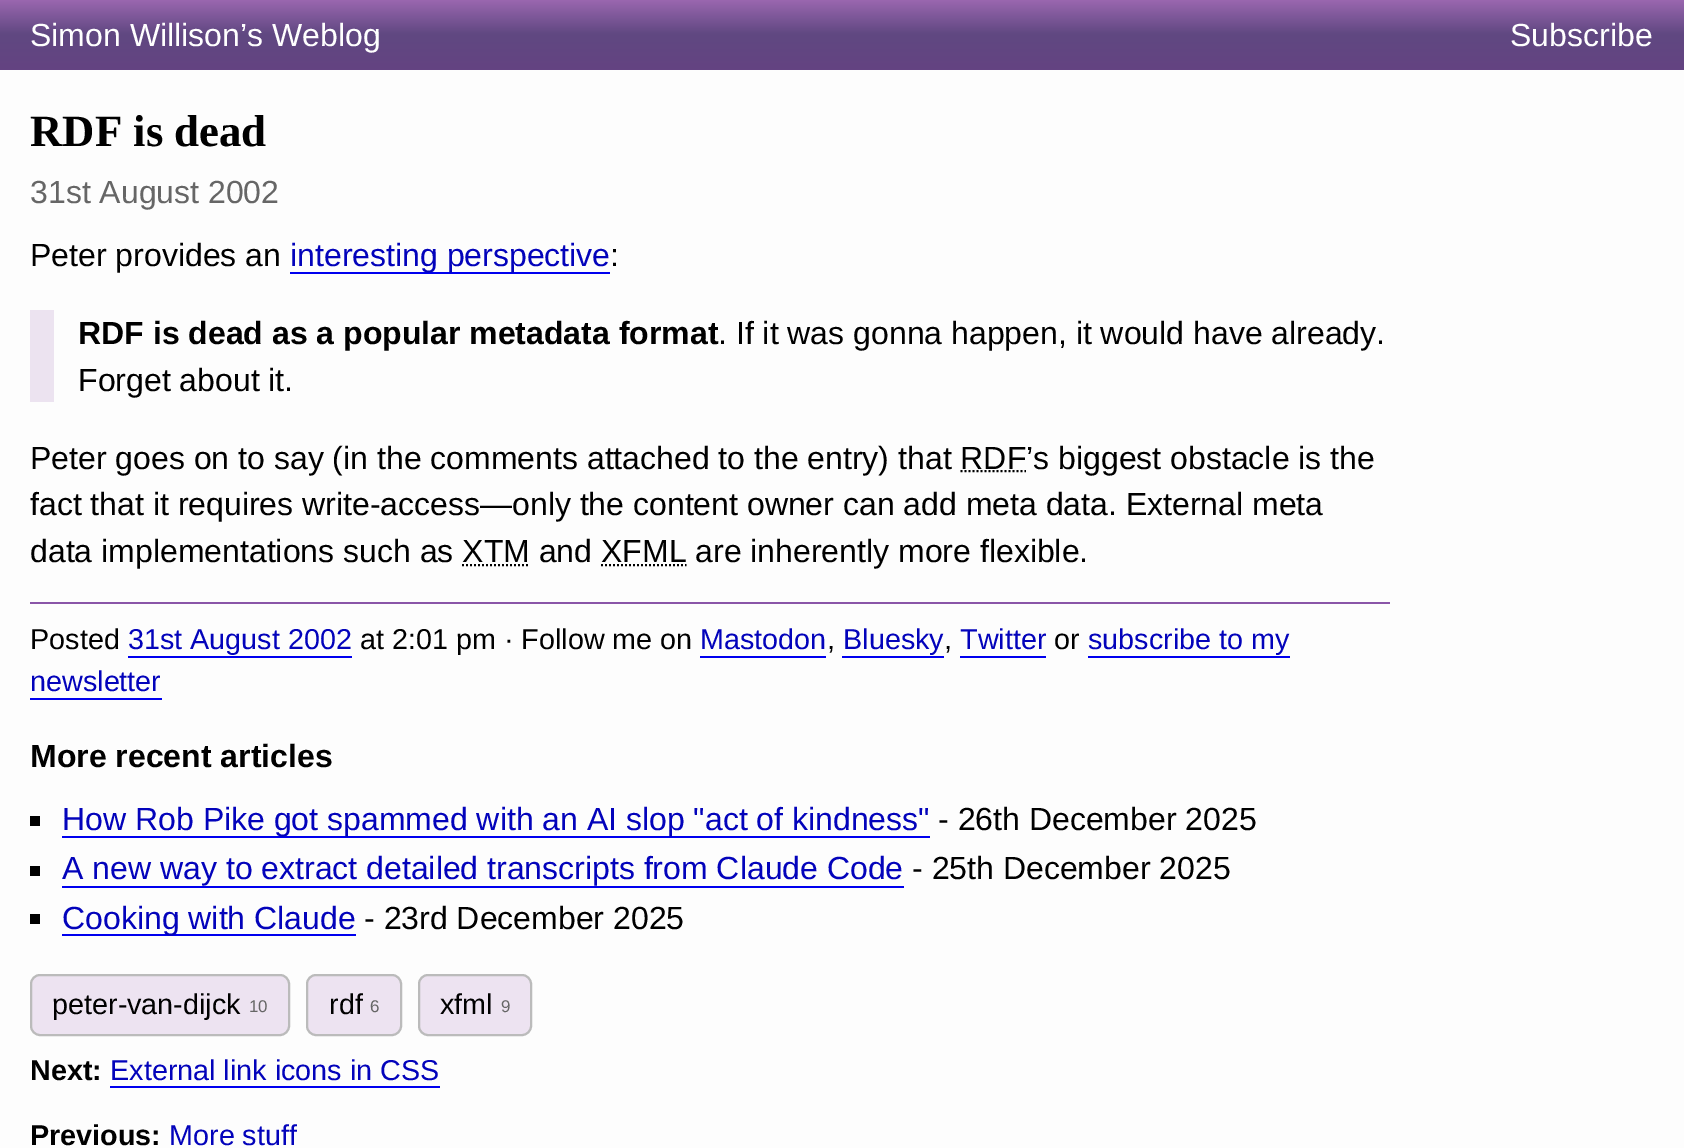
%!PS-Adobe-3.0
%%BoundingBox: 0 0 1684 1148
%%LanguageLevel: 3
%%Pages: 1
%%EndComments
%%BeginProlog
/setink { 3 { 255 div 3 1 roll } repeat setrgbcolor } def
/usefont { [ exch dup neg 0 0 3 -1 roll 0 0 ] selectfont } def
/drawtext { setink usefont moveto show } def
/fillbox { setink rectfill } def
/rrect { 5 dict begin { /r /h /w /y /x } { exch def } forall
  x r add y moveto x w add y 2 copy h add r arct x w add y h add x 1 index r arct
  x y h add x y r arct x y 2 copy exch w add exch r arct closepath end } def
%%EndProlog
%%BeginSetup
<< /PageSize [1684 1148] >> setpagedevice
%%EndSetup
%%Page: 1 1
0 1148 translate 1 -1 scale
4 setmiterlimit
0 0 1684 1148 253 253 253 fillbox
gsave 0 0 moveto 1684 0 lineto 1684 70 lineto 0 70 lineto closepath clip newpath
<< /ShadingType 2 /ColorSpace /DeviceRGB /Coords [842 0 842 70] /Extend [true true] /Function << /FunctionType 3 /Domain [0 1] /Functions [<< /FunctionType 2 /Domain [0 1] /C0 [0.604 0.404 0.686] /C1 [0.376 0.282 0.506] /N 1 >> << /FunctionType 2 /Domain [0 1] /C0 [0.376 0.282 0.506] /C1 [0.392 0.263 0.51] /N 1 >>] /Bounds [0.49] /Encode [0 1 0 1] >> >> shfill grestore
(Simon Willison’s Weblog) 30 46 /LiberationSans-Regular 32 255 255 255 drawtext
(Subscribe) 1510 46 /LiberationSans-Regular 32 255 255 255 drawtext
(RDF is dead) 30 146 /LiberationSerif-Bold 44.75 0 0 0 drawtext
(31st August 2002) 30 203 /LiberationSans-Regular 32 102 102 102 drawtext
(Peter provides an) 30 266 /LiberationSans-Regular 32 0 0 0 drawtext
290 272 320 2 0 0 238 fillbox
(interesting perspective) 290 266 /LiberationSans-Regular 32 3 3 187 drawtext
(:) 610 266 /LiberationSans-Regular 32 0 0 0 drawtext
30 310 24 92 236 227 240 fillbox
(RDF is dead as a popular metadata format) 78 344 /LiberationSans-Bold 32 0 0 0 drawtext
(. If it was gonna happen, it would have already.) 718 344 /LiberationSans-Regular 32 0 0 0 drawtext
(Forget about it.) 78 391 /LiberationSans-Regular 32 0 0 0 drawtext
(Peter goes on to say \(in the comments attached to the entry\) that RDF’s biggest obstacle is the) 30 469 /LiberationSans-Regular 32 0 0 0 drawtext
2 setlinewidth
[2 2] 0 setdash
960.5 471 moveto 1026 471 lineto stroke
(fact that it requires write-access—only the content owner can add meta data. External meta) 30 515 /LiberationSans-Regular 32 0 0 0 drawtext
(data implementations such as XTM and XFML are inherently more flexible.) 30 562 /LiberationSans-Regular 32 0 0 0 drawtext
462 565 moveto 530 565 lineto stroke
601 565 moveto 686.5 565 lineto stroke
30 602 1360 2 138 85 168 fillbox
(Posted) 30 649 /LiberationSans-Regular 28.75 0 0 0 drawtext
(31st August 2002) 128 649 /LiberationSans-Regular 28.75 3 3 187 drawtext
128 656 224 2 0 0 238 fillbox
(at 2:01 pm · Follow me on) 360 649 /LiberationSans-Regular 28.75 0 0 0 drawtext
(Mastodon) 700 649 /LiberationSans-Regular 28.75 3 3 187 drawtext
700 656 126 2 0 0 238 fillbox
(,) 827 649 /LiberationSans-Regular 28.75 0 0 0 drawtext
(Bluesky) 843 649 /LiberationSans-Regular 28.75 3 3 187 drawtext
842 656 102 2 0 0 238 fillbox
(,) 944 649 /LiberationSans-Regular 28.75 0 0 0 drawtext
(Twitter) 960 649 /LiberationSans-Regular 28.75 3 3 187 drawtext
960 656 86 2 0 0 238 fillbox
(or) 1054 649 /LiberationSans-Regular 28.75 0 0 0 drawtext
(subscribe to my) 1088 649 /LiberationSans-Regular 28.75 3 3 187 drawtext
1088 656 202 2 0 0 238 fillbox
(newsletter) 30 691 /LiberationSans-Regular 28.75 3 3 187 drawtext
30 698 132 2 0 0 238 fillbox
(More recent articles) 30 767 /LiberationSans-Bold 32 0 0 0 drawtext
30 816 10 10 0 0 0 fillbox
62 836 868 2 0 0 238 fillbox
(How Rob Pike got spammed with an AI slop "act of kindness") 62 830 /LiberationSans-Regular 32 3 3 187 drawtext
(- 26th December 2025) 938 830 /LiberationSans-Regular 32 0 0 0 drawtext
30 866 10 10 0 0 0 fillbox
(A new way to extract detailed transcripts from Claude Code) 62 879 /LiberationSans-Regular 32 3 3 187 drawtext
62 886 842 2 0 0 238 fillbox
(- 25th December 2025) 912 879 /LiberationSans-Regular 32 0 0 0 drawtext
30 914 10 10 0 0 0 fillbox
62 934 294 2 0 0 238 fillbox
(Cooking with Claude) 62 929 /LiberationSans-Regular 32 3 3 187 drawtext
(- 23rd December 2025) 364 929 /LiberationSans-Regular 32 0 0 0 drawtext
237 227 241 setink
31 975 258 60 9 rrect gsave fill grestore
187 187 187 setink
[] 0 setdash
stroke
(peter-van-dijck) 52 1014 /LiberationSans-Regular 28.75 0 0 0 drawtext
(10) 249 1012 /LiberationSans-Regular 17 102 102 102 drawtext
237 227 241 setink
307 975 94 60 9 rrect gsave fill grestore
187 187 187 setink
stroke
(rdf) 329 1014 /LiberationSans-Regular 28.75 0 0 0 drawtext
(6) 370 1012 /LiberationSans-Regular 17 102 102 102 drawtext
237 227 241 setink
419 975 112 60 9 rrect gsave fill grestore
187 187 187 setink
stroke
(xfml) 440 1014 /LiberationSans-Regular 28.75 0 0 0 drawtext
(9) 501 1012 /LiberationSans-Regular 17 102 102 102 drawtext
(Next:) 30 1080 /LiberationSans-Bold 28.75 0 0 0 drawtext
(External link icons in CSS) 110 1080 /LiberationSans-Regular 28.75 3 3 187 drawtext
110 1086 330 2 0 0 238 fillbox
(Previous:) 30 1145 /LiberationSans-Bold 28.75 0 0 0 drawtext
(More stuff) 169 1145 /LiberationSans-Regular 28.75 3 3 187 drawtext
showpage
%%EOF
